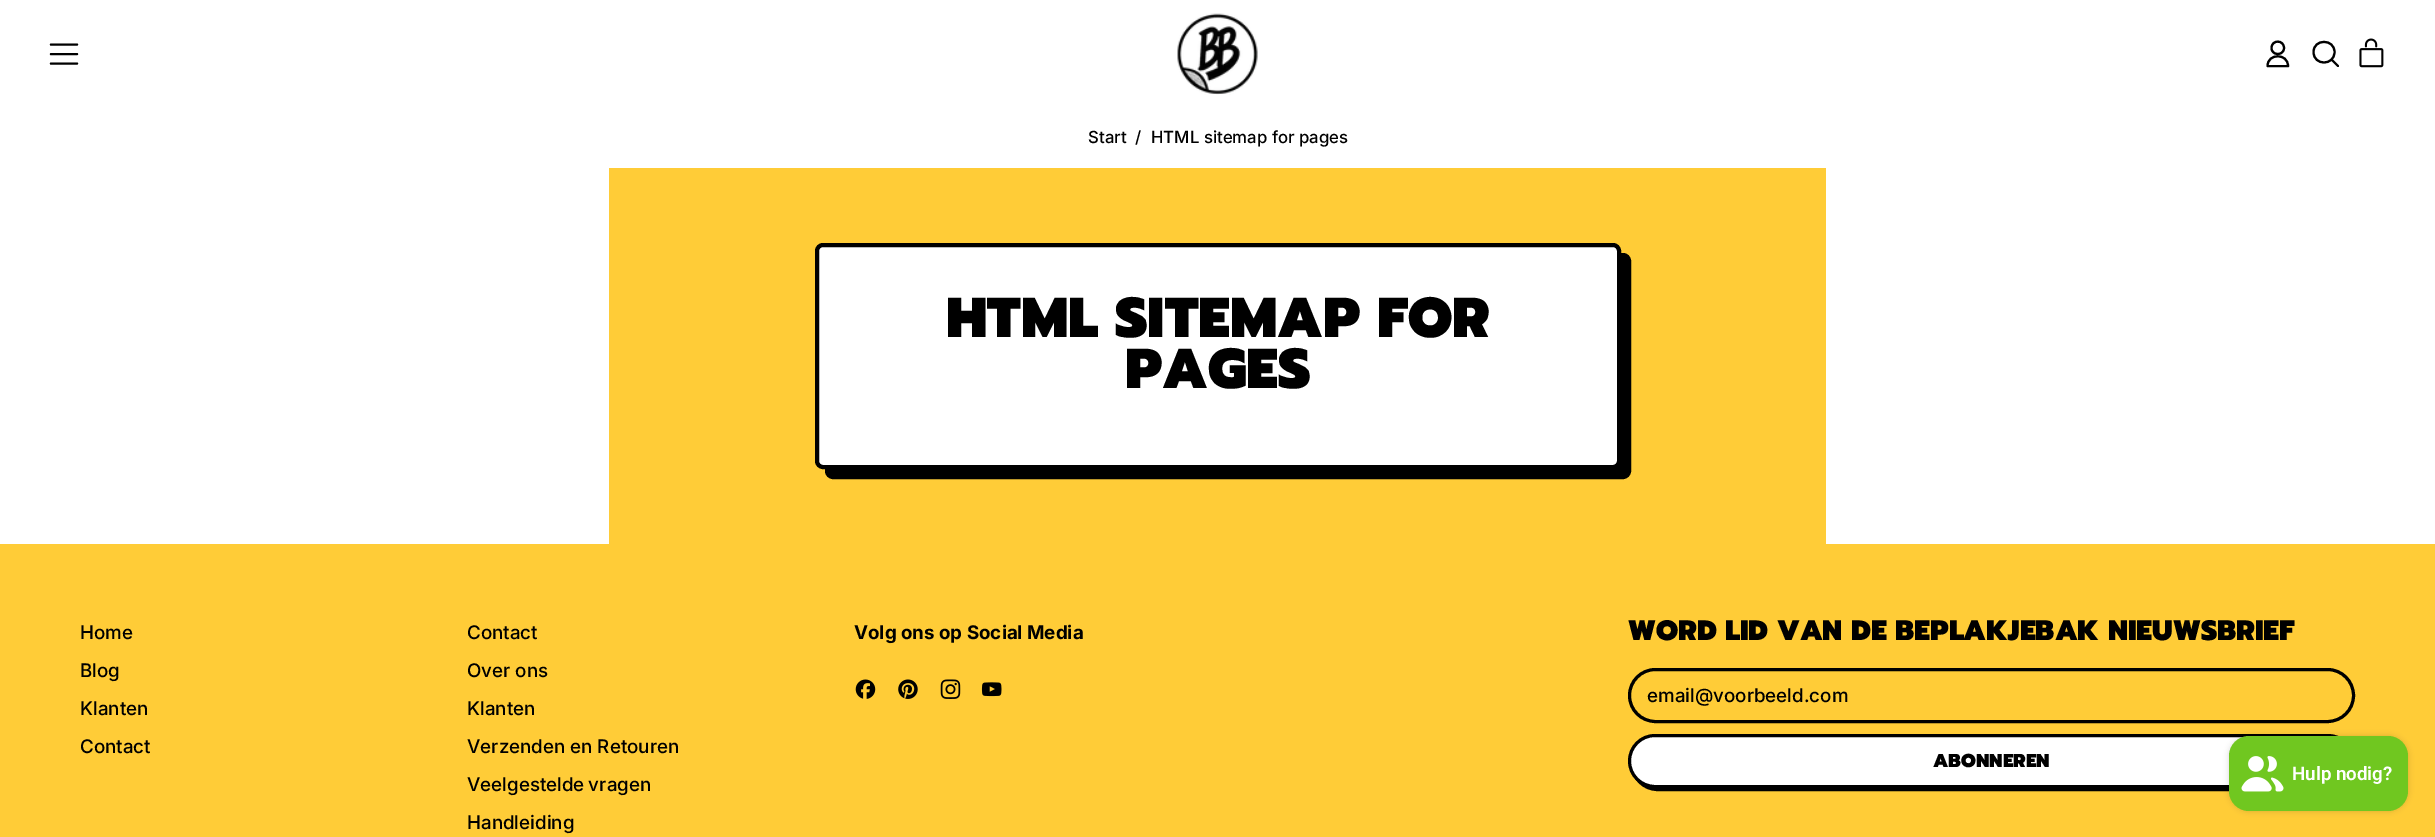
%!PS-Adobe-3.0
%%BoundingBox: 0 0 2435 837
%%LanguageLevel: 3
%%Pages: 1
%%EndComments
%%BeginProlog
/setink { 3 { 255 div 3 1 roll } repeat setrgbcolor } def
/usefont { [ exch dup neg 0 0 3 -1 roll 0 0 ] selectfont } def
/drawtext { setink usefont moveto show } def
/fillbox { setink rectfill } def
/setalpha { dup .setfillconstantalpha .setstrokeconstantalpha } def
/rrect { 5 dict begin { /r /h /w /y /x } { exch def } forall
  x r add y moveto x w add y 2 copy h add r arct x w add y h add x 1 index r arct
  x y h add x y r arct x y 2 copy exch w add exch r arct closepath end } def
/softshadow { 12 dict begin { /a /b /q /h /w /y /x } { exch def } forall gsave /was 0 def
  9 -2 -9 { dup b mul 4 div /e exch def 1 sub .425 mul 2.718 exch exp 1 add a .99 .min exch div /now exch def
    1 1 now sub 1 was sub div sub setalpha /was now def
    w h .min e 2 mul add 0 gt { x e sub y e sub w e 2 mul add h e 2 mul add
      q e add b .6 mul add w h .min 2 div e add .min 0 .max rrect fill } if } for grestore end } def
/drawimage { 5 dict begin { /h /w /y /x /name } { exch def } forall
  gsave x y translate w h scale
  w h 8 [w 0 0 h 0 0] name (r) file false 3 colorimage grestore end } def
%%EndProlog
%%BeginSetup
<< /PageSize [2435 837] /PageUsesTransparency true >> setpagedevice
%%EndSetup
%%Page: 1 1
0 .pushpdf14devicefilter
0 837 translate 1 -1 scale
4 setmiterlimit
0 0 2435 837 255 255 255 fillbox
0 0 0 setink
2.1 setlinewidth
1 setlinecap
1 setlinejoin
77 63.5 moveto 51 63.5 lineto 77 54 moveto 51 54 lineto 77 44.5 moveto 51 44.5 lineto stroke
(assets/img1.rgb) 1177 13 81 82 drawimage
2271.5 48 moveto 2271.5 56 2284 56 2284 48 curveto 2284 39.5 2271.5 39.5 2271.5 48 curveto closepath 2267.5 66 moveto 2267.5 53 2288 53 2288 66 curveto closepath stroke
2313.5 52 moveto 2313.5 66 2334.5 66 2334.5 52 curveto 2334.5 38.5 2313.5 38.5 2313.5 52 curveto closepath 2338 66 moveto 2332 60 lineto stroke
(assets/img2.rgb) 2359 38 25 30 drawimage
(Start) 1088 143 /Inter-Medium 16.75 0 0 0 drawtext
(/) 1135 143 /Inter-Medium 16.75 0 0 0 drawtext
(HTML sitemap for pages) 1151 143 /Inter-Medium 16.75 0 0 0 drawtext
609 168 1217 376 255 204 55 fillbox
0 0 0 setink
827 255 802 222 6 rrect gsave fill grestore
4 setlinewidth
0 setlinecap
0 setlinejoin
stroke
255 255 255 setink
817 245 802 222 6 rrect gsave fill grestore
0 0 0 setink
stroke
(HTML SITEMAP FOR) 946 337 /Prompt-Black 56.25 0 0 0 drawtext
(PAGES) 1125 388 /Prompt-Black 56.25 0 0 0 drawtext
0 544 2435 293 255 204 55 fillbox
(Home) 80 639 /Inter-Medium 18.75 0 0 0 drawtext
(Blog) 80 677 /Inter-Medium 18.75 0 0 0 drawtext
(Klanten) 80 715 /Inter-Medium 18.75 0 0 0 drawtext
(Contact) 80 753 /Inter-Medium 18.75 0 0 0 drawtext
(Contact) 467 639 /Inter-Medium 18.75 0 0 0 drawtext
(Over ons) 467 677 /Inter-Medium 18.75 0 0 0 drawtext
(Klanten) 467 715 /Inter-Medium 18.75 0 0 0 drawtext
(Verzenden en Retouren) 467 753 /Inter-Medium 18.75 0 0 0 drawtext
467 791 moveto -1 0 32 (Veelgestelde vragen) widthshow
(Handleiding) 467 829 /Inter-Medium 18.75 0 0 0 drawtext
(Volg ons op Social Media) 854 639 /Inter-Bold 18.75 0 0 0 drawtext
(assets/img3.rgb) 855 679 21 20 drawimage
(assets/img4.rgb) 898 679 20 20 drawimage
(assets/img5.rgb) 940 679 21 20 drawimage
(assets/img6.rgb) 981 682 21 15 drawimage
(WORD LID VAN DE BEPLAKJEBAK NIEUWSBRIEF) 1628 640 /Prompt-Black 28.1 0 0 0 drawtext
3 setlinewidth
1629.5 669.5 724 52 26 rrect stroke
(email@voorbeeld.com) 1647 702 /Inter-Medium 18.75 0 0 0 drawtext
1632.5 739.5 725 50 25 rrect stroke
255 255 255 setink
1629.5 735.5 724 51 25.5 rrect gsave fill grestore
0 0 0 setink
stroke
(ABONNEREN) 1933 767 /Prompt-Black 18.75 0 0 0 drawtext
2229 736 179 75 20 3 0.15 softshadow
112 199 32 setink
2229 736 179 75 20 rrect fill
(assets/img7.rgb) 2241 756 43 36 drawimage
(Hulp nodig?) 2292 780 /Roboto-SemiBold 18.75 255 255 255 drawtext
.poppdf14devicefilter showpage
%%EOF
